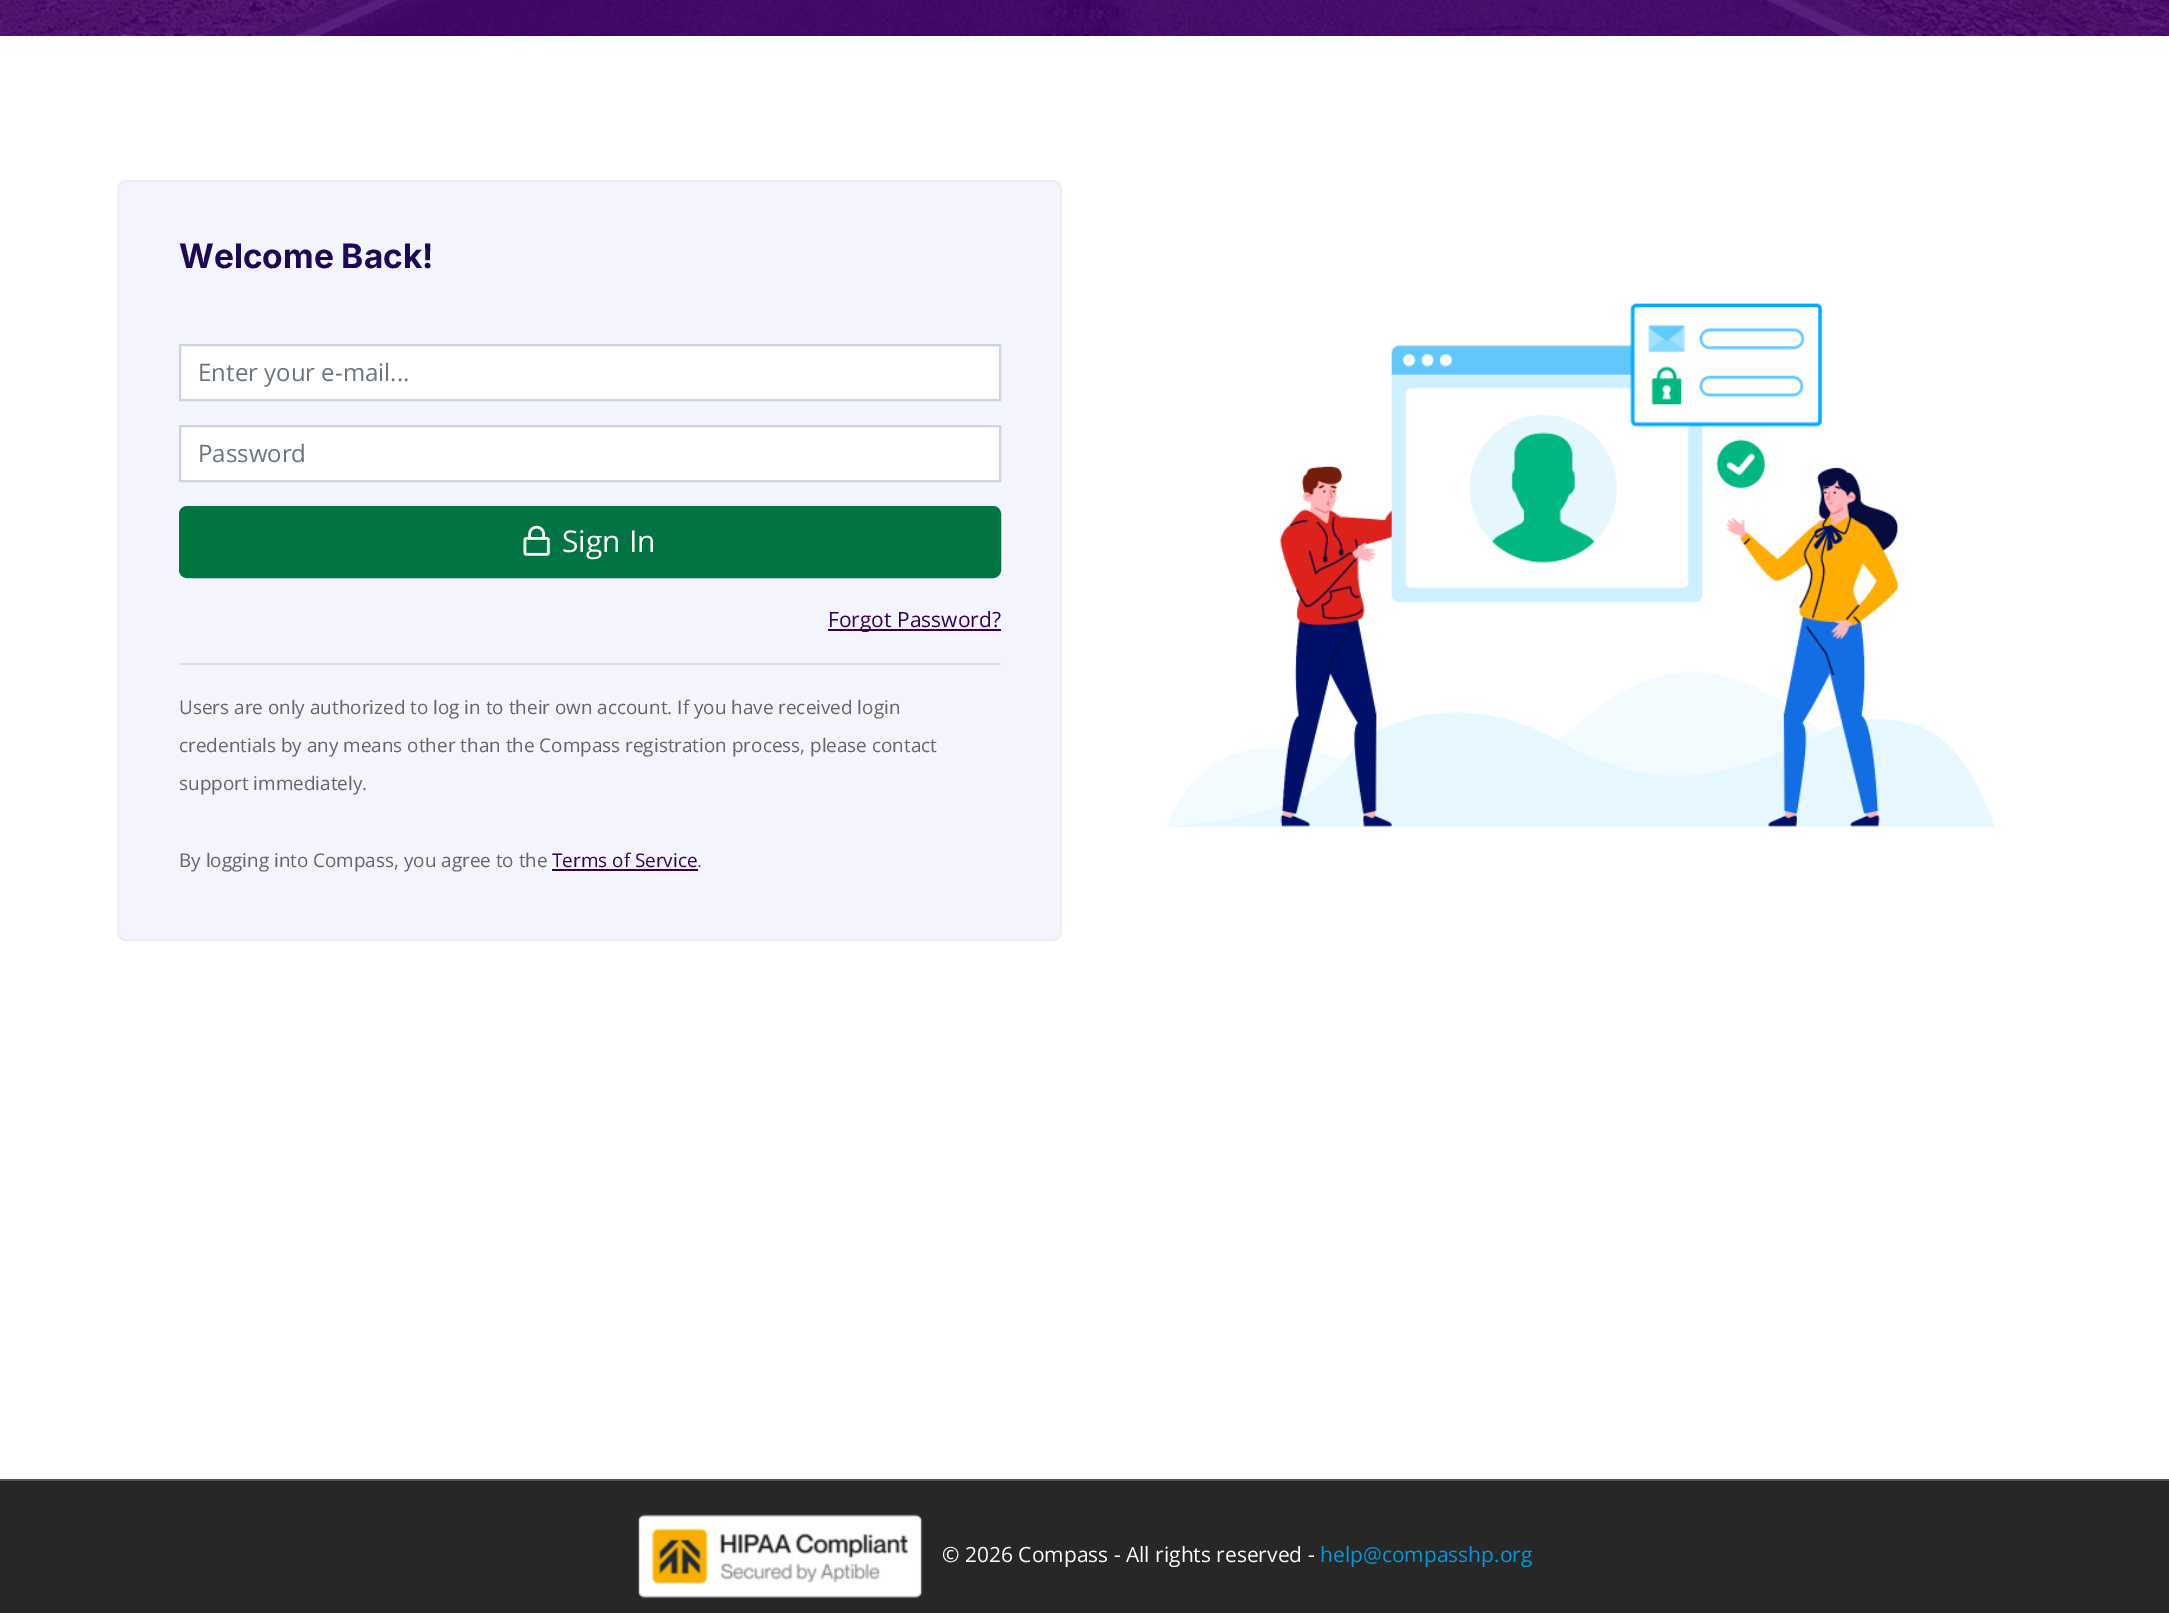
%!PS-Adobe-3.0
%%BoundingBox: 0 0 2169 1613
%%LanguageLevel: 3
%%Pages: 1
%%EndComments
%%BeginProlog
/setink { 3 { 255 div 3 1 roll } repeat setrgbcolor } def
/usefont { [ exch dup neg 0 0 3 -1 roll 0 0 ] selectfont } def
/drawtext { setink usefont moveto show } def
/fillbox { setink rectfill } def
/rrect { 5 dict begin { /r /h /w /y /x } { exch def } forall
  x r add y moveto x w add y 2 copy h add r arct x w add y h add x 1 index r arct
  x y h add x y r arct x y 2 copy exch w add exch r arct closepath end } def
/drawimage { 5 dict begin { /h /w /y /x /name } { exch def } forall
  gsave x y translate w h scale
  w h 8 [w 0 0 h 0 0] name (r) file false 3 colorimage grestore end } def
%%EndProlog
%%BeginSetup
<< /PageSize [2169 1613] >> setpagedevice
%%EndSetup
%%Page: 1 1
0 1613 translate 1 -1 scale
4 setmiterlimit
0 0 2169 1613 255 255 255 fillbox
(assets/img1.rgb) 0 0 2169 36 drawimage
244 244 255 setink
118 181 943 759 8 rrect gsave fill grestore
238 238 238 setink
2 setlinewidth
stroke
(Welcome Back!) 179 268 /Inter-Bold 33.5 31 7 87 drawtext
255 255 255 setink
180 345 moveto 1000 345 lineto 1000 400 lineto 180 400 lineto closepath gsave fill grestore
206 212 218 setink
stroke
(Enter your e-mail...) 198 381 /OpenSans-Regular 24 108 117 125 drawtext
255 255 255 setink
180 426 moveto 1000 426 lineto 1000 481 lineto 180 481 lineto closepath gsave fill grestore
206 212 218 setink
stroke
(Password) 198 462 /OpenSans-Regular 24 108 117 125 drawtext
0 117 65 setink
180 507 820 70 7 rrect gsave fill grestore
stroke
(assets/img2.rgb) 523 525 27 31 drawimage
(Sign In) 562 552 /OpenSans-Regular 30 255 255 255 drawtext
828 629 173 2 54 0 86 fillbox
(Forgot Password?) 828 627 /OpenSans-Regular 21 54 0 86 drawtext
179 663 822 2 220 220 230 fillbox
(Users are only authorized to log in to their own account. If you have received login) 179 714 /OpenSans-Regular 18.9 102 102 102 drawtext
(credentials by any means other than the Compass registration process, please contact) 179 752 /OpenSans-Regular 18.9 102 102 102 drawtext
(support immediately.) 179 790 /OpenSans-Regular 18.9 102 102 102 drawtext
(By logging into Compass, you agree to the) 179 867 /OpenSans-Regular 18.9 102 102 102 drawtext
(Terms of Service) 552 867 /OpenSans-Regular 18.9 54 0 86 drawtext
(.) 697 867 /OpenSans-Regular 18.9 102 102 102 drawtext
552 869 146 2 54 0 86 fillbox
(assets/img3.rgb) 1166 303 829 525 drawimage
0 1481 2169 132 39 39 39 fillbox
0 1479 2169 2 85 85 85 fillbox
(assets/img4.rgb) 637 1514 286 84 drawimage
(© 2026 Compass - All rights reserved -) 942 1562 /OpenSans-Regular 21 255 255 255 drawtext
(help@compasshp.org) 1320 1562 /OpenSans-Regular 21 0 153 218 drawtext
showpage
%%EOF
